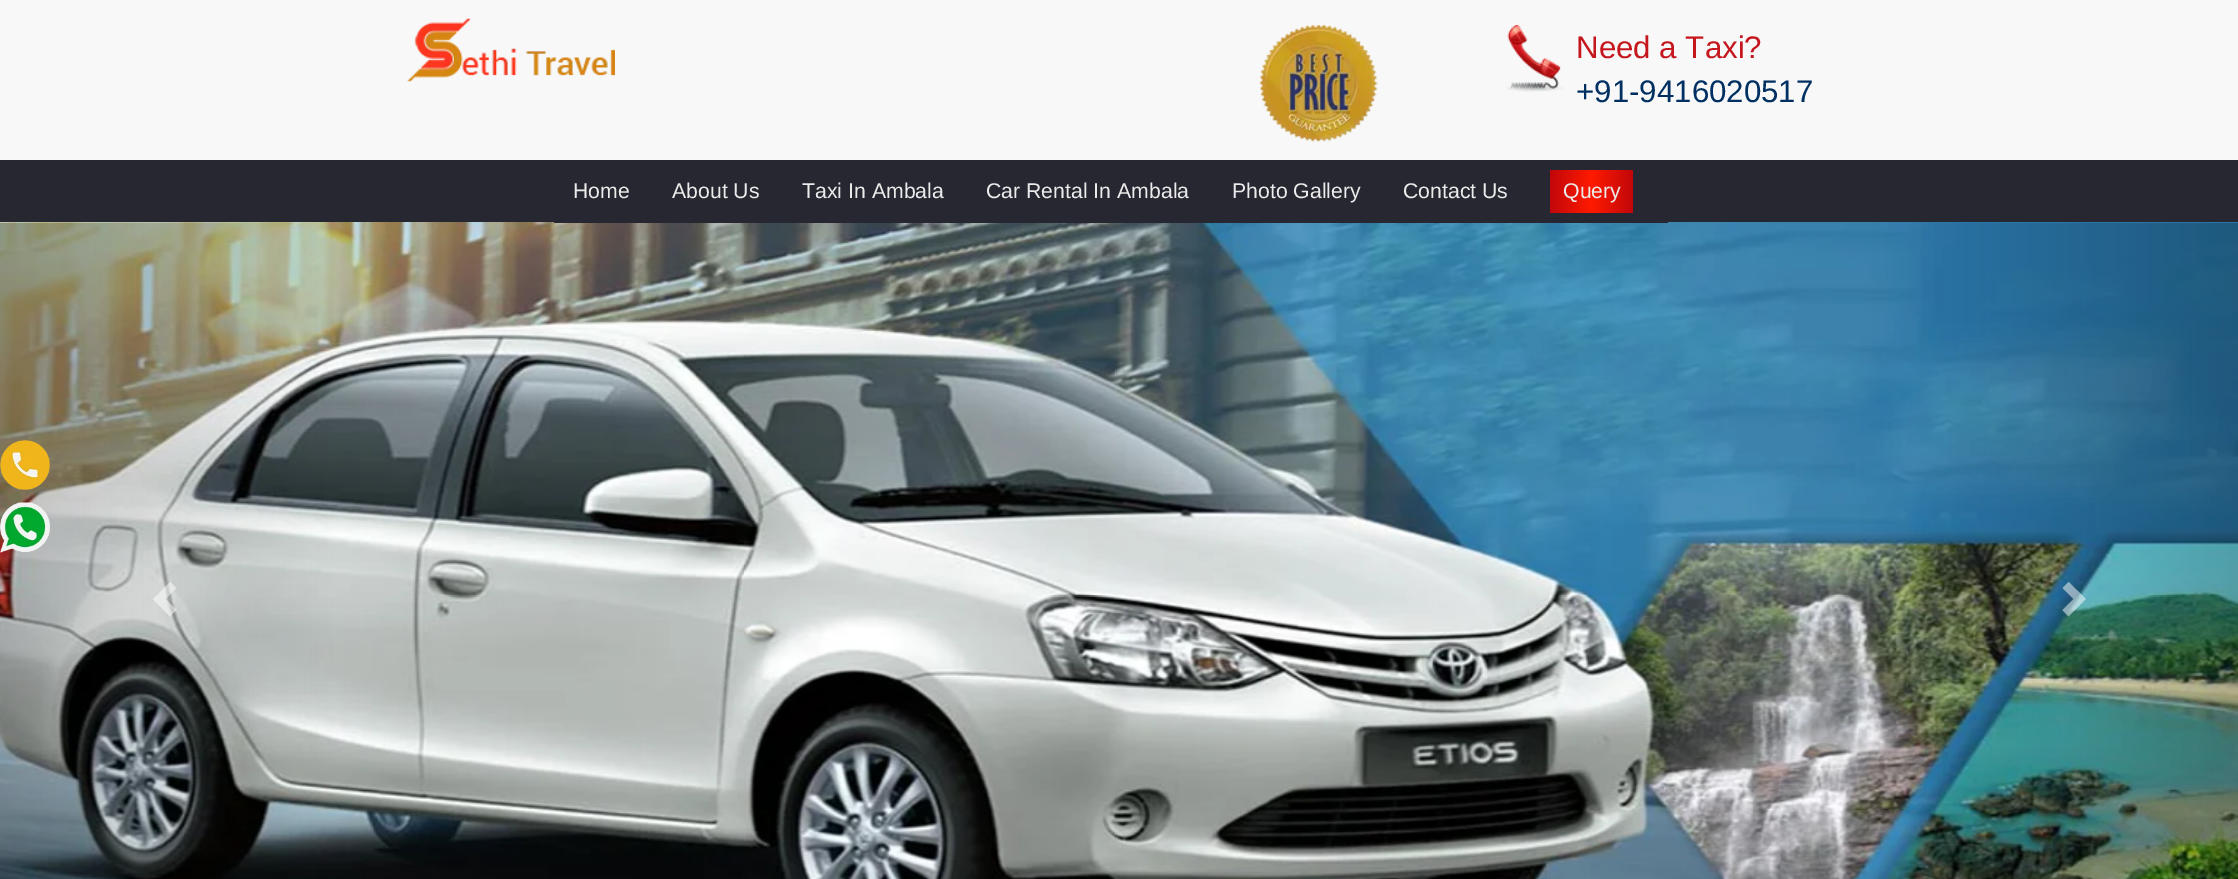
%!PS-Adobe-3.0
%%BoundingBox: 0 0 2238 879
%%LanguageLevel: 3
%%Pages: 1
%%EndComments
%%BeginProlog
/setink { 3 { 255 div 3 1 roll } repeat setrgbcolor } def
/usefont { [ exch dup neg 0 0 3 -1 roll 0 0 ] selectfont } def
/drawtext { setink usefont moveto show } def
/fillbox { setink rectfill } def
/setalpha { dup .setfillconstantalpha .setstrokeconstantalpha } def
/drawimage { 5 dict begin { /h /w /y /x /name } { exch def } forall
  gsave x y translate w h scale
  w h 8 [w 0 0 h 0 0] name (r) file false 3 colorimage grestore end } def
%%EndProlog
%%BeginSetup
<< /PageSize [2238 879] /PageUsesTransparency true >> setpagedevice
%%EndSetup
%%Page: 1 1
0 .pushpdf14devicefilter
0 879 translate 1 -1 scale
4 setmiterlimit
0 0 2238 879 248 248 248 fillbox
(assets/img1.rgb) 407 18 208 64 drawimage
(assets/img2.rgb) 1260 25 118 117 drawimage
(assets/img3.rgb) 1506 25 58 67 drawimage
(Need a Taxi?) 1576 58 /LiberationSans-Regular 31.25 196 22 28 drawtext
(+91-9416020517) 1576 102 /LiberationSans-Regular 31.25 0 47 97 drawtext
0 160 2238 62 39 39 49 fillbox
(assets/img4.rgb) 0 222 2238 657 drawimage
554 222 1114 1 39 39 49 fillbox
(Home) 573 198 /LiberationSans-Regular 21.25 235 235 235 drawtext
(About Us) 672 198 /LiberationSans-Regular 21.25 235 235 235 drawtext
(Taxi In Ambala) 802 198 /LiberationSans-Regular 21.25 235 235 235 drawtext
(Car Rental In Ambala) 986 198 /LiberationSans-Regular 21.25 235 235 235 drawtext
(Photo Gallery) 1232 198 /LiberationSans-Regular 21.25 235 235 235 drawtext
(Contact Us) 1403 198 /LiberationSans-Regular 21.25 235 235 235 drawtext
gsave 1550 170 moveto 1633 170 lineto 1633 213 lineto 1550 213 lineto closepath clip newpath
<< /ShadingType 2 /ColorSpace /DeviceRGB /Coords [1550 191 1633 191] /Extend [true true] /Function << /FunctionType 3 /Domain [0 1] /Functions [<< /FunctionType 2 /Domain [0 1] /C0 [0.757 0.027 0.039] /C1 [1 0.102 0] /N 1 >> << /FunctionType 2 /Domain [0 1] /C0 [1 0.102 0] /C1 [0.757 0.027 0.039] /N 1 >>] /Bounds [0.5] /Encode [0 1 0 1] >> >> shfill grestore
(Query) 1563 198 /LiberationSans-Regular 21.25 235 235 235 drawtext
0.5 setalpha
255 255 255 setink
176.5 588 moveto 165.5 599 lineto 176.5 610 lineto 170 616.5 lineto 153 599 lineto 170 582 lineto closepath fill
2086 599 moveto 2068.5 616.5 lineto 2062.5 610 lineto 2073.5 599 lineto 2062.5 588 lineto 2068.5 582 lineto closepath fill
1 setalpha
(assets/img5.rgb) 0 440 50 50 drawimage
(assets/img6.rgb) 0 502 50 51 drawimage
.poppdf14devicefilter showpage
%%EOF
